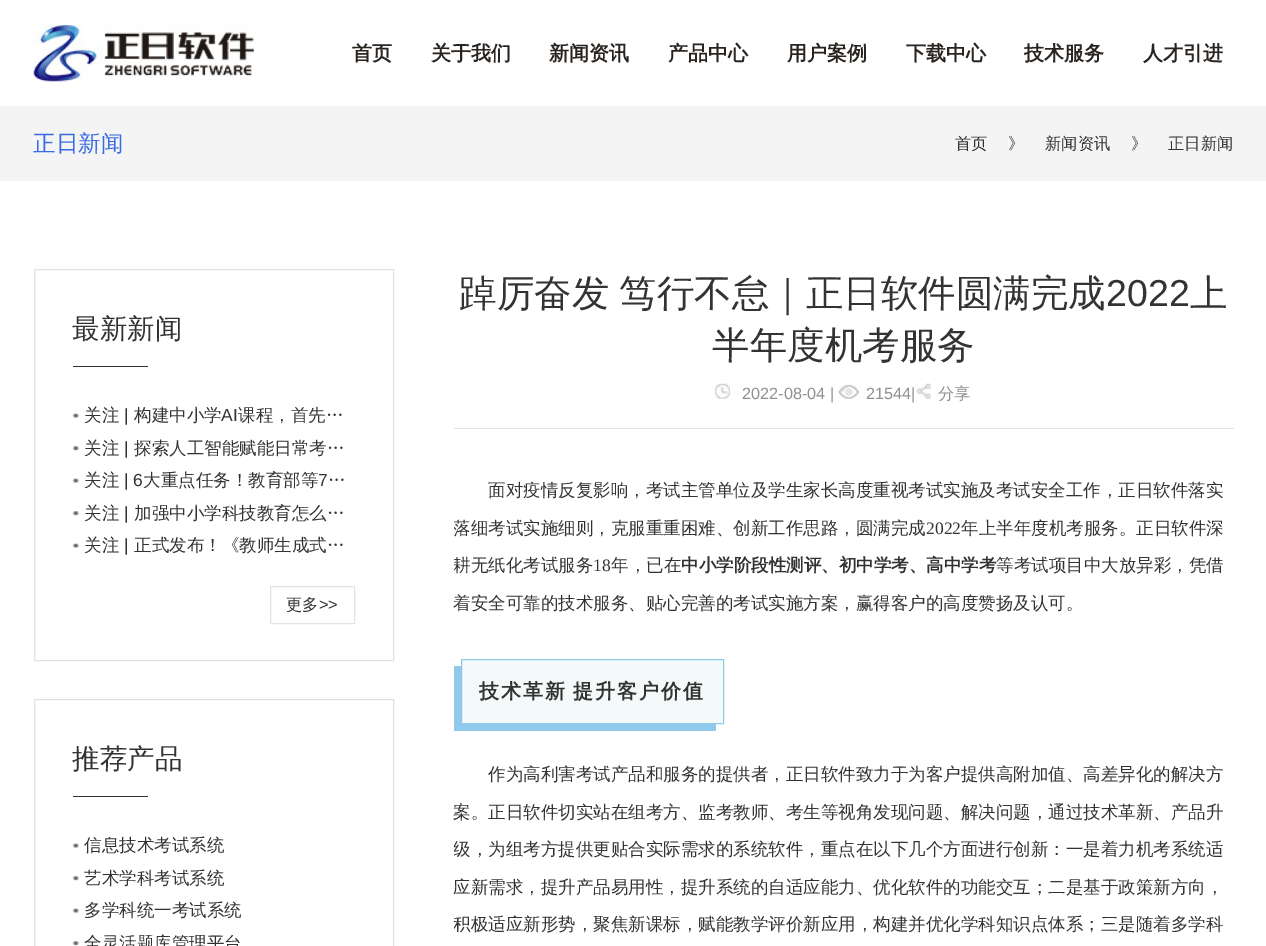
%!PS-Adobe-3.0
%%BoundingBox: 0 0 1266 946
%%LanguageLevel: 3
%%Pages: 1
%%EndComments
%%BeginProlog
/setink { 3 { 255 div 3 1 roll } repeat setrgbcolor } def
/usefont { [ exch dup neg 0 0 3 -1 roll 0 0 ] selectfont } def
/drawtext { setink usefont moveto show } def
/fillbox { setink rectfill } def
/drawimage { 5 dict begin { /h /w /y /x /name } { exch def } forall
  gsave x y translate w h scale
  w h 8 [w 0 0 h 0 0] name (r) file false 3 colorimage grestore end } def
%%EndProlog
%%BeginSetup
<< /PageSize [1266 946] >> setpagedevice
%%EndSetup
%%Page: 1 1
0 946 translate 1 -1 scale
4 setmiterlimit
0 0 1266 946 255 255 255 fillbox
(assets/img1.rgb) 33 25 221 57 drawimage
(首页) 352 60 /WenQuanYiZenHei-Bold 20 41 36 32 drawtext
(关于我们) 431 60 /WenQuanYiZenHei-Bold 20 41 36 32 drawtext
(新闻资讯) 549 60 /WenQuanYiZenHei-Bold 20 41 36 32 drawtext
(产品中心) 668 60 /WenQuanYiZenHei-Bold 20 41 36 32 drawtext
(用户案例) 787 60 /WenQuanYiZenHei-Bold 20 41 36 32 drawtext
(下载中心) 906 60 /WenQuanYiZenHei-Bold 20 41 36 32 drawtext
(技术服务) 1024 60 /WenQuanYiZenHei-Bold 20 41 36 32 drawtext
(人才引进) 1143 60 /WenQuanYiZenHei-Bold 20 41 36 32 drawtext
0 106 1266 75 244 244 244 fillbox
(正日新闻) 33 151 /WenQuanYiZenHei-Medium 22.5 56 107 226 drawtext
(首页) 955 149 /WenQuanYiZenHei-Medium 16.25 51 51 51 drawtext
(》) 1008 149 /WenQuanYiZenHei-Medium 16.25 51 51 51 drawtext
(新闻资讯) 1045 149 /WenQuanYiZenHei-Medium 16.25 51 51 51 drawtext
(》) 1131 149 /WenQuanYiZenHei-Medium 16.25 51 51 51 drawtext
(正日新闻) 1168 149 /WenQuanYiZenHei-Medium 16.25 51 51 51 drawtext
226 226 226 setink
34.5 269.5 359 391 rectstroke
(最新新闻) 72 338 /WenQuanYiZenHei-Medium 27.5 51 51 51 drawtext
73 366 75 1 51 51 51 fillbox
(assets/img2.rgb) 72 413 7 5 drawimage
(关注) 84 421 /WenQuanYiZenHei-Medium 17.5 51 51 51 drawtext
(|) 124 421 /LiberationSans-Regular 17.5 51 51 51 drawtext
(构建中小学) 134 421 /WenQuanYiZenHei-Medium 17.5 51 51 51 drawtext
(AI) 221 421 /LiberationSans-Regular 17.5 51 51 51 drawtext
(课程，首先…) 238 421 /WenQuanYiZenHei-Medium 17.5 51 51 51 drawtext
(assets/img3.rgb) 72 446 7 5 drawimage
(关注) 84 454 /WenQuanYiZenHei-Medium 17.5 51 51 51 drawtext
(|) 124 454 /LiberationSans-Regular 17.5 51 51 51 drawtext
(探索人工智能赋能日常考…) 134 454 /WenQuanYiZenHei-Medium 17.5 51 51 51 drawtext
(assets/img2.rgb) 72 478 7 5 drawimage
(关注) 84 486 /WenQuanYiZenHei-Medium 17.5 51 51 51 drawtext
(| 6) 124 486 /LiberationSans-Regular 17.5 51 51 51 drawtext
(大重点任务！教育部等) 143 486 /WenQuanYiZenHei-Medium 17.5 51 51 51 drawtext
(7) 318 486 /LiberationSans-Regular 17.5 51 51 51 drawtext
(…) 328 486 /WenQuanYiZenHei-Medium 17.5 51 51 51 drawtext
(assets/img3.rgb) 72 511 7 5 drawimage
(关注) 84 519 /WenQuanYiZenHei-Medium 17.5 51 51 51 drawtext
(|) 124 519 /LiberationSans-Regular 17.5 51 51 51 drawtext
(加强中小学科技教育怎么…) 134 519 /WenQuanYiZenHei-Medium 17.5 51 51 51 drawtext
(assets/img2.rgb) 72 543 7 5 drawimage
(关注) 84 551 /WenQuanYiZenHei-Medium 17.5 51 51 51 drawtext
(|) 124 551 /LiberationSans-Regular 17.5 51 51 51 drawtext
(正式发布！《教师生成式…) 134 551 /WenQuanYiZenHei-Medium 17.5 51 51 51 drawtext
226 226 226 setink
270.5 586.5 84 37 rectstroke
(更多) 286 610 /WenQuanYiZenHei-Medium 16.25 51 51 51 drawtext
(>>) 319 610 /LiberationSans-Regular 16.25 51 51 51 drawtext
226 226 226 setink
34.5 699.5 359 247 rectstroke
(推荐产品) 72 768 /WenQuanYiZenHei-Medium 27.5 51 51 51 drawtext
73 796 75 1 51 51 51 fillbox
(assets/img2.rgb) 72 843 7 5 drawimage
(信息技术考试系统) 84 851 /WenQuanYiZenHei-Medium 17.5 51 51 51 drawtext
(assets/img3.rgb) 72 876 7 5 drawimage
(艺术学科考试系统) 84 884 /WenQuanYiZenHei-Medium 17.5 51 51 51 drawtext
(assets/img2.rgb) 72 908 7 5 drawimage
(多学科统一考试系统) 84 916 /WenQuanYiZenHei-Medium 17.5 51 51 51 drawtext
(assets/img3.rgb) 72 941 7 5 drawimage
(全灵活题库管理平台) 84 949 /WenQuanYiZenHei-Medium 17.5 51 51 51 drawtext
454 428 780 1 226 226 226 fillbox
/WenQuanYiZenHei-Medium 37.5 usefont
51 51 51 setink
459 306 moveto -1 0 32 (踔厉奋发 笃行不怠｜正日软件圆满完成) widthshow
(2022) 1106 306 /LiberationSans-Regular 37.5 51 51 51 drawtext
(上) 1190 306 /WenQuanYiZenHei-Medium 37.5 51 51 51 drawtext
(半年度机考服务) 712 358 /WenQuanYiZenHei-Medium 37.5 51 51 51 drawtext
(assets/img4.rgb) 715 383 15 16 drawimage
(2022-08-04 |) 742 399 /LiberationSans-Regular 16.25 144 144 144 drawtext
(assets/img5.rgb) 838 384 21 15 drawimage
(21544|) 866 399 /LiberationSans-Regular 16.25 144 144 144 drawtext
(assets/img6.rgb) 916 383 16 16 drawimage
(分享) 938 399 /WenQuanYiZenHei-Medium 16.25 144 144 144 drawtext
(面对疫情反复影响，考试主管单位及学生家长高度重视考试实施及考试安全工作，正日软件落实) 488 496 /WenQuanYiZenHei-Medium 17.5 51 51 51 drawtext
gsave
454 429 780 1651 rectclip
(落细考试实施细则，克服重重困难、创新工作思路，圆满完成) 453 534 /WenQuanYiZenHei-Medium 17.5 51 51 51 drawtext
grestore
(2022) 926 534 /LiberationSerif-Regular 17.5 51 51 51 drawtext
(年上半年度机考服务。正日软件深) 961 534 /WenQuanYiZenHei-Medium 17.5 51 51 51 drawtext
gsave
454 429 780 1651 rectclip
(耕无纸化考试服务) 453 571 /WenQuanYiZenHei-Medium 17.5 51 51 51 drawtext
grestore
(18) 593 571 /LiberationSerif-Regular 17.5 51 51 51 drawtext
(年，已在) 611 571 /WenQuanYiZenHei-Medium 17.5 51 51 51 drawtext
(中小学阶段性测评、初中学考、高中学考) 681 571 /WenQuanYiZenHei-Bold 17.5 51 51 51 drawtext
(等考试项目中大放异彩，凭借) 996 571 /WenQuanYiZenHei-Medium 17.5 51 51 51 drawtext
(着安全可靠的技术服务、贴心完善的考试实施方案，赢得客户的高度赞扬及认可。) 453 609 /WenQuanYiZenHei-Medium 17.5 51 51 51 drawtext
454 666 262 65 144 201 235 fillbox
244 249 250 setink
461.5 659.5 moveto 723.5 659.5 lineto 723.5 723.5 lineto 461.5 723.5 lineto closepath gsave fill grestore
144 201 235 setink
stroke
/WenQuanYiZenHei-Bold 20 usefont
51 51 51 setink
479 698 moveto -1 0 32 1.9 0 (技术革新 提升客户价值) awidthshow
(作为高利害考试产品和服务的提供者，正日软件致力于为客户提供高附加值、高差异化的解决方) 488 780 /WenQuanYiZenHei-Medium 17.5 51 51 51 drawtext
(案。正日软件切实站在组考方、监考教师、考生等视角发现问题、解决问题，通过技术革新、产品升) 453 818 /WenQuanYiZenHei-Medium 17.5 51 51 51 drawtext
gsave
454 429 780 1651 rectclip
(级，为组考方提供更贴合实际需求的系统软件，重点在以下几个方面进行创新：一是着力机考系统适) 453 855 /WenQuanYiZenHei-Medium 17.5 51 51 51 drawtext
grestore
(应新需求，提升产品易用性，提升系统的自适应能力、优化软件的功能交互；二是基于政策新方向，) 453 893 /WenQuanYiZenHei-Medium 17.5 51 51 51 drawtext
gsave
454 429 780 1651 rectclip
(积极适应新形势，聚焦新课标，赋能教学评价新应用，构建并优化学科知识点体系；三是随着多学科) 453 930 /WenQuanYiZenHei-Medium 17.5 51 51 51 drawtext
grestore
showpage
%%EOF
